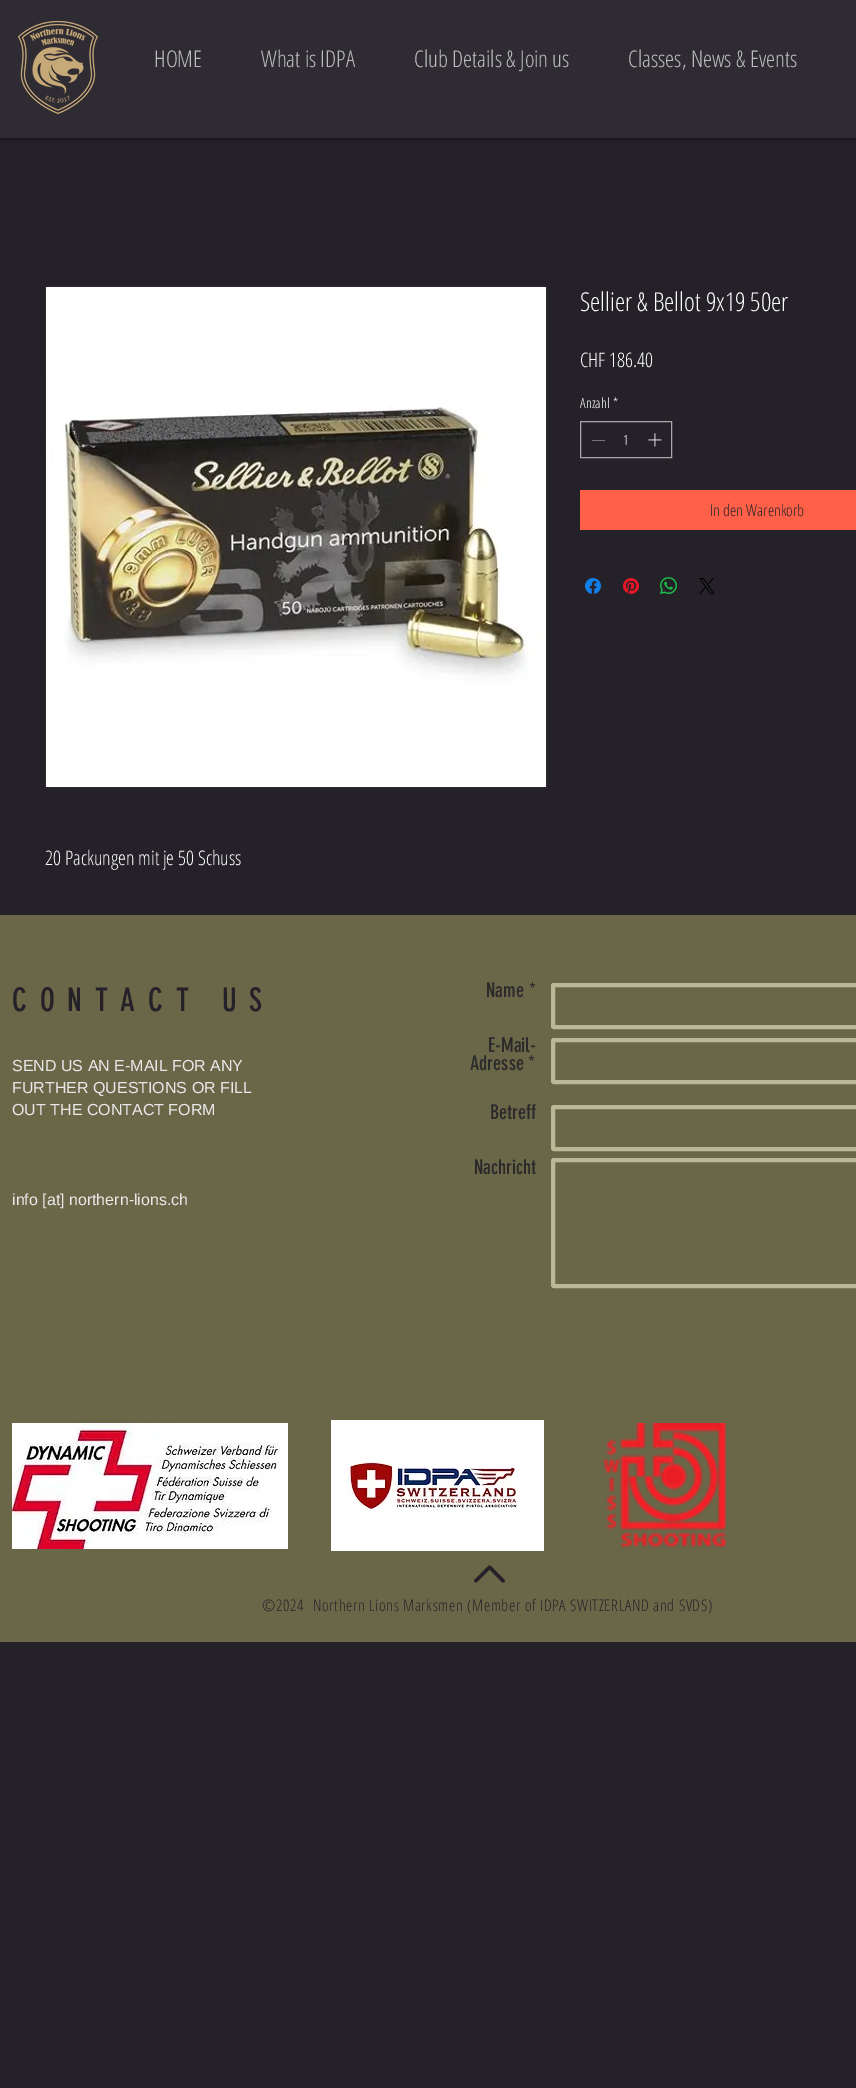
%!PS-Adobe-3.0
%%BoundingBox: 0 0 856 2088
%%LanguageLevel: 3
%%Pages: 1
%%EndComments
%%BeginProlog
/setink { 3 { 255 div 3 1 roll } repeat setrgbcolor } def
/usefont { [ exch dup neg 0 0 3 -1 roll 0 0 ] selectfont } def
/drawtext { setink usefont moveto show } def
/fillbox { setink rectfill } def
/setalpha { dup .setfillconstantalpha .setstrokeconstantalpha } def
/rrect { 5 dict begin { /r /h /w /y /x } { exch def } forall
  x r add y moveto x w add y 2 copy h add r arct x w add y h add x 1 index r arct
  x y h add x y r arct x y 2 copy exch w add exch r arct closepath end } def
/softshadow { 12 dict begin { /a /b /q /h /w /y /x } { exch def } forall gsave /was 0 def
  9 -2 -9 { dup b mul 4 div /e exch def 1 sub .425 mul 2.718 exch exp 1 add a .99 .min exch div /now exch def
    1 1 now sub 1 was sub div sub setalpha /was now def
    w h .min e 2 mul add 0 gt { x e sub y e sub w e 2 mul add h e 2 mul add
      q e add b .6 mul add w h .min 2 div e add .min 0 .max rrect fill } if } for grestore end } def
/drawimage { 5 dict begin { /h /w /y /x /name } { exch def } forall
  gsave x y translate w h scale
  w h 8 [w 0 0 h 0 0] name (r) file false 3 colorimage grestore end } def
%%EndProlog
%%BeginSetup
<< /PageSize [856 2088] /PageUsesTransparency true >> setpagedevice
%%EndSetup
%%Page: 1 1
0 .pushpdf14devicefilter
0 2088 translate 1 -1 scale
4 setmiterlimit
0 0 856 2088 37 33 40 fillbox
0 0 0 setink
0 0 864 138 0 2.5 0.7 softshadow
0 0 856 138 47 43 50 fillbox
(assets/img1.rgb) 18 21 80 93 drawimage
(HOME) 154 67 /OpenSansCondensed-Light 23 189 189 189 drawtext
(What is IDPA) 261 67 /OpenSansCondensed-Light 23 189 189 189 drawtext
(Club Details & Join us) 414 67 /OpenSansCondensed-Light 23 189 189 189 drawtext
(Classes, News & Events) 628 67 /OpenSansCondensed-Light 23 189 189 189 drawtext
(Sellier & Bellot 9x19 50er) 580 311 /OpenSansCondensed-Light 26 255 255 255 drawtext
(CHF 186.40) 580 367 /OpenSansCondensed-Light 20 255 255 255 drawtext
(Anzahl) 580 408 /OpenSansCondensed-Light 14 255 255 255 drawtext
(*) 613 408 /OpenSansCondensed-Light 14 255 255 255 drawtext
168 166 169 setink
580.5 421.5 91 36 rectstroke
592 440 13 1 118 116 120 fillbox
(1) 623 445 /OpenSansCondensed-Light 14 255 255 255 drawtext
(assets/img2.rgb) 648 433 14 14 drawimage
580 490 276 40 254 97 72 fillbox
(In den Warenkorb) 710 516 /OpenSansCondensed-Light 16 37 33 40 drawtext
(assets/img3.rgb) 585 578 16 16 drawimage
(assets/img4.rgb) 623 578 16 16 drawimage
(assets/img5.rgb) 660 577 17 17 drawimage
(assets/img6.rgb) 699 578 16 16 drawimage
47 43 50 setink
45.5 286.5 501 501 rectstroke
(assets/img7.rgb) 46 287 500 500 drawimage
(20 Packungen mit je 50 Schuss) 45 865 /OpenSansCondensed-Light 20 255 255 255 drawtext
0 915 856 727 106 103 73 fillbox
/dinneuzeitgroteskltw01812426-Regular 32 usefont
37 33 40 setink
12 1011 moveto 12.75 0 (CONTACT US) ashow
(Name *) 486 997 /dinneuzeitgroteskltw01812426-Regular 20 42 42 42 drawtext
186 184 151 setink
4 setlinewidth
553 985 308 42 1 rrect stroke
(E-Mail-) 488 1052 /dinneuzeitgroteskltw01812426-Regular 20 42 42 42 drawtext
(Adresse *) 470 1070 /dinneuzeitgroteskltw01812426-Regular 20 42 42 42 drawtext
186 184 151 setink
553 1040 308 42 1 rrect stroke
(Betreff) 490 1119 /dinneuzeitgroteskltw01812426-Regular 20 42 42 42 drawtext
186 184 151 setink
553 1107 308 42 1 rrect stroke
(Nachricht) 474 1174 /dinneuzeitgroteskltw01812426-Regular 20 42 42 42 drawtext
186 184 151 setink
553 1160 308 126 1 rrect stroke
(SEND US AN E-MAIL FOR ANY) 12 1071 /LiberationSans-Regular 16 232 232 232 drawtext
(FURTHER QUESTIONS OR FILL) 12 1093 /LiberationSans-Regular 16 232 232 232 drawtext
(OUT THE CONTACT FORM) 12 1115 /LiberationSans-Regular 16 232 232 232 drawtext
(info [at] northern-lions.ch) 12 1205 /LiberationSans-Regular 16 232 232 232 drawtext
(assets/img8.rgb) 12 1423 276 126 drawimage
(assets/img9.rgb) 331 1420 213 131 drawimage
(assets/img10.rgb) 602 1423 124 125 drawimage
(assets/img11.rgb) 474 1565 31 18 drawimage
/OpenSansCondensed-Light 16 usefont
37 33 40 setink
262 1611 moveto 0.65 0 (©2024) ashow
313 1611 moveto 0.65 0 (Northern Lions Marksmen \(Member of IDPA SWITZERLAND and SVDS\)) ashow
.poppdf14devicefilter showpage
%%EOF
